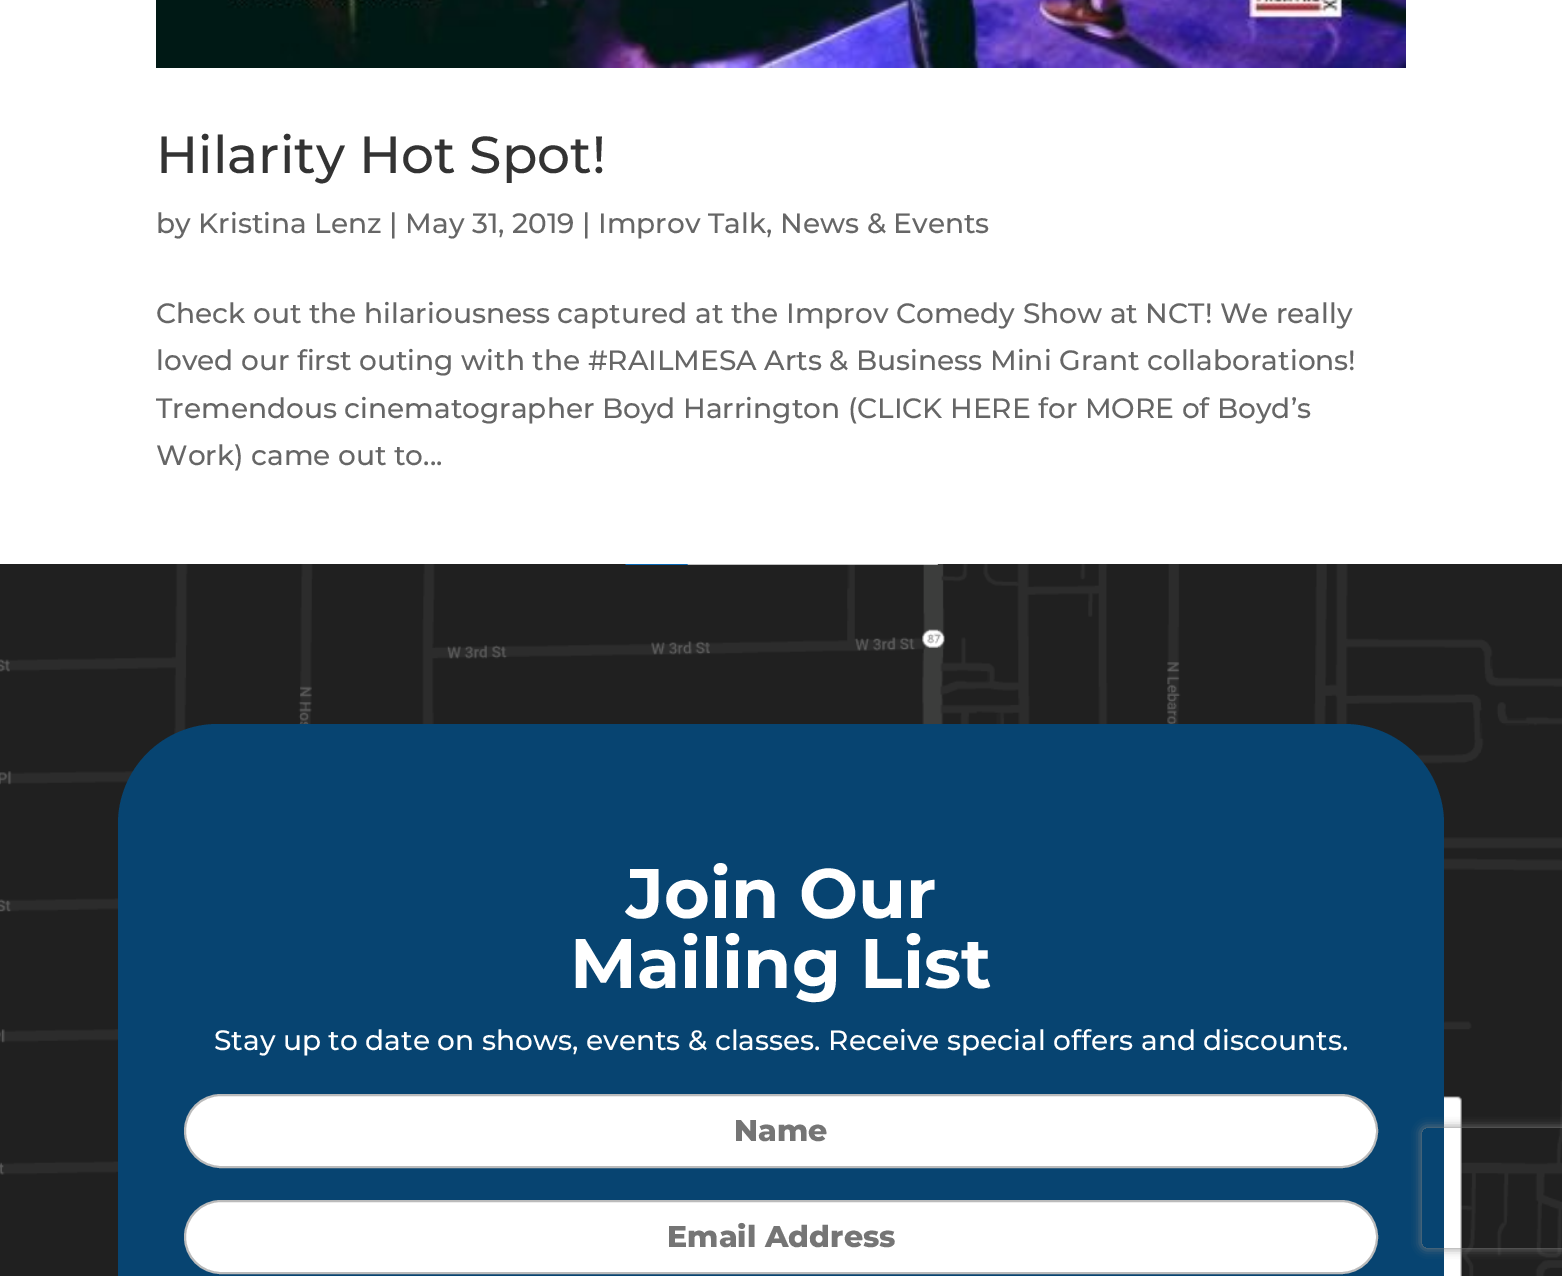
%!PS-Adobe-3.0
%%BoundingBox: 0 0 1562 1276
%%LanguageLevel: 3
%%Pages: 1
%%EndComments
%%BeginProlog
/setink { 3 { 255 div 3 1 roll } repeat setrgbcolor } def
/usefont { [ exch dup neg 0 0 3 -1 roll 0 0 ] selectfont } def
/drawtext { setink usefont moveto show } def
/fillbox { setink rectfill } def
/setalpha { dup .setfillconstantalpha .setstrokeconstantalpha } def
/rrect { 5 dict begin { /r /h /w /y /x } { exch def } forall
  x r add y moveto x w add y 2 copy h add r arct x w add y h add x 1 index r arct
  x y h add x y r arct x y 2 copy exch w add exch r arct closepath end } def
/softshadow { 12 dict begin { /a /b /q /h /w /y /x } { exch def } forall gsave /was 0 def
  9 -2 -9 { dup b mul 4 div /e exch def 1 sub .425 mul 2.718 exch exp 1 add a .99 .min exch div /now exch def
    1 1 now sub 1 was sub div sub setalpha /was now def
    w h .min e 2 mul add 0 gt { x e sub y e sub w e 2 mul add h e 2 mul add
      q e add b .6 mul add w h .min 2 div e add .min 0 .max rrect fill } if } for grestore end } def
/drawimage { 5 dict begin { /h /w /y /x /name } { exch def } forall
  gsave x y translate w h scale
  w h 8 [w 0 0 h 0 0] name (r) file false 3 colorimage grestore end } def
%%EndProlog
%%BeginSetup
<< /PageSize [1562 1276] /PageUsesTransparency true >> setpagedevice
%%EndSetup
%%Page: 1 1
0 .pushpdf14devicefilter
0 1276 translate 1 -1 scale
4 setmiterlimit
0 0 1562 1276 255 255 255 fillbox
(assets/img1.rgb) 156 0 1250 68 drawimage
(Hilarity Hot Spot!) 156 173 /Montserrat-Thin 52 51 51 51 drawtext
(by Kristina Lenz | May 31, 2019 | Improv Talk, News & Events) 156 233 /Montserrat-Thin 28 102 102 102 drawtext
(Check out the hilariousness captured at the Improv Comedy Show at NCT! We really) 156 323 /Montserrat-Thin 28 102 102 102 drawtext
(loved our first outing with the #RAILMESA Arts & Business Mini Grant collaborations!) 156 370 /Montserrat-Thin 28 102 102 102 drawtext
(Tremendous cinematographer Boyd Harrington \(CLICK HERE for MORE of Boyd’s) 156 418 /Montserrat-Thin 28 102 102 102 drawtext
(Work\) came out to...) 156 465 /Montserrat-Thin 28 102 102 102 drawtext
(assets/img2.rgb) 0 564 1562 712 drawimage
7 68 113 setink
118 724 1326 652 100 rrect fill
(Join Our) 626 918 /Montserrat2-Thin 70 255 255 255 drawtext
(Mailing List) 570 988 /Montserrat2-Thin 70 255 255 255 drawtext
(Stay up to date on shows, events & classes. Receive special offers and discounts.) 214 1050 /Montserrat-Thin 28 255 255 255 drawtext
185 1095 1192 72 36 rrect gsave fill grestore
187 187 187 setink
2 setlinewidth
stroke
(Name) 734 1141 /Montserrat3-Thin 30 117 117 117 drawtext
gsave
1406 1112 moveto 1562 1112 lineto 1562 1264 lineto 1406 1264 lineto closepath 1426 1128 moveto 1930 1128 lineto 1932 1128 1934 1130 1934 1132 curveto 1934 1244 lineto 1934 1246 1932 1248 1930 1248 curveto 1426 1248 lineto 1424 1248 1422 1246 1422 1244 curveto 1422 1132 lineto 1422 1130 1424 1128 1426 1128 curveto closepath eoclip newpath
128 128 128 setink
1422 1128 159 120 4 5 1 softshadow
grestore
255 255 255 setink
185 1201 1192 72 36 rrect gsave fill grestore
187 187 187 setink
stroke
(Email Address) 667 1247 /Montserrat3-Thin 30 117 117 117 drawtext
.poppdf14devicefilter showpage
%%EOF
